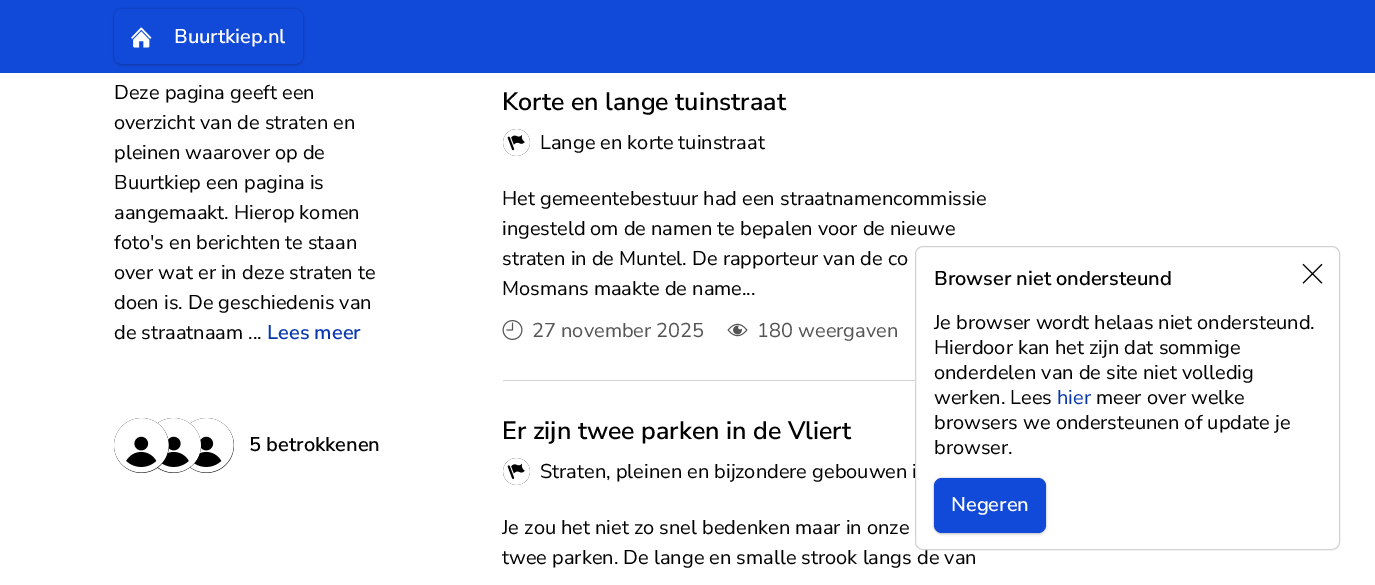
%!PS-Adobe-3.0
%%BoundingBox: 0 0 1375 585
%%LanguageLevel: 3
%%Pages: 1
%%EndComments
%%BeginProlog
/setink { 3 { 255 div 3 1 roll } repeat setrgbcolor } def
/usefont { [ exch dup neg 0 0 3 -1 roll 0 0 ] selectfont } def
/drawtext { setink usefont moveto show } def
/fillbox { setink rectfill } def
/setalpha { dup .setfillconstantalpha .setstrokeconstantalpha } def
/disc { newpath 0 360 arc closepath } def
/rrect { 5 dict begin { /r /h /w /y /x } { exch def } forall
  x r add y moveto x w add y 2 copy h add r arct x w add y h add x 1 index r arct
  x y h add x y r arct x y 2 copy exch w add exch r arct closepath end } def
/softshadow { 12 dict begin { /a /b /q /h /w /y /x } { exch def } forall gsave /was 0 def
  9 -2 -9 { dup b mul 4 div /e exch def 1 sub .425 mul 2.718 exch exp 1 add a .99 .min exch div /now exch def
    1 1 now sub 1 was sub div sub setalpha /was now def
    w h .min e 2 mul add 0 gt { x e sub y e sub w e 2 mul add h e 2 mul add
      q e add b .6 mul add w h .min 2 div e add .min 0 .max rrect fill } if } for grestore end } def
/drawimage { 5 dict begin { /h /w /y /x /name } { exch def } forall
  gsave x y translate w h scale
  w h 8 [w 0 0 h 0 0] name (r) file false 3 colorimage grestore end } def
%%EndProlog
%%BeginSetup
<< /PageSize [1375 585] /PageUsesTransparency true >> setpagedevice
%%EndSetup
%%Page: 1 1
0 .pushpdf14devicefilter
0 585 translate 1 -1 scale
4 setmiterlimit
0 0 1375 585 255 255 255 fillbox
0 0 1375 73 17 73 216 fillbox
0 0 0 setink
114 11 189 55 8 1 0.1 softshadow
114 9 189 55 8 1 0.3 softshadow
17 73 216 setink
114 9 189 55 8 rrect fill
(assets/img1.rgb) 131 27 21 21 drawimage
(Buurtkiep.nl) 174 43 /NunitoSans-SemiBold 20 255 255 255 drawtext
(Deze pagina geeft een) 114 99 /NunitoSans-Regular 20 0 0 0 drawtext
(overzicht van de straten en) 114 129 /NunitoSans-Regular 20 0 0 0 drawtext
(pleinen waarover op de) 114 159 /NunitoSans-Regular 20 0 0 0 drawtext
(Buurtkiep een pagina is) 114 189 /NunitoSans-Regular 20 0 0 0 drawtext
(aangemaakt. Hierop komen) 114 219 /NunitoSans-Regular 20 0 0 0 drawtext
(foto's en berichten te staan) 114 249 /NunitoSans-Regular 20 0 0 0 drawtext
(over wat er in deze straten te) 114 279 /NunitoSans-Regular 20 0 0 0 drawtext
(doen is. De geschiedenis van) 114 309 /NunitoSans-Regular 20 0 0 0 drawtext
(de straatnaam ...) 114 339 /NunitoSans-Regular 20 0 0 0 drawtext
(Lees meer) 267 339 /NunitoSans-SemiBold 20 7 54 175 drawtext
0 0 0 setink
206.5 445.5 27.5 disc fill
(assets/img4.rgb) 189 418 45 55 drawimage
173.5 445.5 27.5 disc fill
(assets/img3.rgb) 157 418 44 55 drawimage
141.5 445.5 27.5 disc fill
(assets/img2.rgb) 114 418 55 55 drawimage
(5 betrokkenen) 249 451 /NunitoSans-SemiBold 20 0 0 0 drawtext
(Korte en lange tuinstraat) 502 110 /NunitoSans-SemiBold 25 0 0 0 drawtext
516.5 142.5 13.5 disc fill
(assets/img5.rgb) 503 129 27 27 drawimage
(Lange en korte tuinstraat) 540 149 /NunitoSans-Regular 20 0 0 0 drawtext
(Het gemeentebestuur had een straatnamencommissie) 502 205 /NunitoSans-Regular 20 0 0 0 drawtext
(ingesteld om de namen te bepalen voor de nieuwe) 502 235 /NunitoSans-Regular 20 0 0 0 drawtext
(straten in de Muntel. De rapporteur van de co) 502 265 /NunitoSans-Regular 20 0 0 0 drawtext
(Mosmans maakte de name...) 502 295 /NunitoSans-Regular 20 0 0 0 drawtext
(assets/img6.rgb) 502 320 21 20 drawimage
(27 november 2025) 532 337 /NunitoSans-Regular 20 84 84 84 drawtext
(assets/img7.rgb) 727 323 21 14 drawimage
(180 weergaven) 757 337 /NunitoSans-Regular 20 84 84 84 drawtext
503 380 412 1 210 210 210 fillbox
(Er zijn twee parken in de Vliert) 502 439 /NunitoSans-SemiBold 25 0 0 0 drawtext
516.5 471.5 13.5 disc fill
(assets/img8.rgb) 503 458 27 27 drawimage
(Straten, pleinen en bijzondere gebouwen i) 540 478 /NunitoSans-Regular 20 0 0 0 drawtext
(Je zou het niet zo snel bedenken maar in onze) 502 534 /NunitoSans-Regular 20 0 0 0 drawtext
(twee parken. De lange en smalle strook langs de van) 502 564 /NunitoSans-Regular 20 0 0 0 drawtext
255 255 255 setink
915.5 246.5 424 303 7.5 rrect gsave fill grestore
210 210 210 setink
stroke
(assets/img9.rgb) 1302 263 21 21 drawimage
(Browser niet ondersteund) 934 285 /NunitoSans-SemiBold 20 0 0 0 drawtext
(Je browser wordt helaas niet ondersteund.) 934 329 /NunitoSans-Regular 20 0 0 0 drawtext
(Hierdoor kan het zijn dat sommige) 934 354 /NunitoSans-Regular 20 0 0 0 drawtext
(onderdelen van de site niet volledig) 934 379 /NunitoSans-Regular 20 0 0 0 drawtext
(werken. Lees) 934 404 /NunitoSans-Regular 20 0 0 0 drawtext
(hier) 1057 404 /NunitoSans-Regular 20 7 54 175 drawtext
(meer over welke) 1096 404 /NunitoSans-Regular 20 0 0 0 drawtext
(browsers we ondersteunen of update je) 934 429 /NunitoSans-Regular 20 0 0 0 drawtext
(browser.) 934 454 /NunitoSans-Regular 20 0 0 0 drawtext
934 480 112 55 8 1 0.1 softshadow
934 478 112 55 8 1 0.3 softshadow
17 73 216 setink
934 478 112 55 8 rrect fill
(Negeren) 951 511 /NunitoSans-SemiBold 20 255 255 255 drawtext
.poppdf14devicefilter showpage
%%EOF
